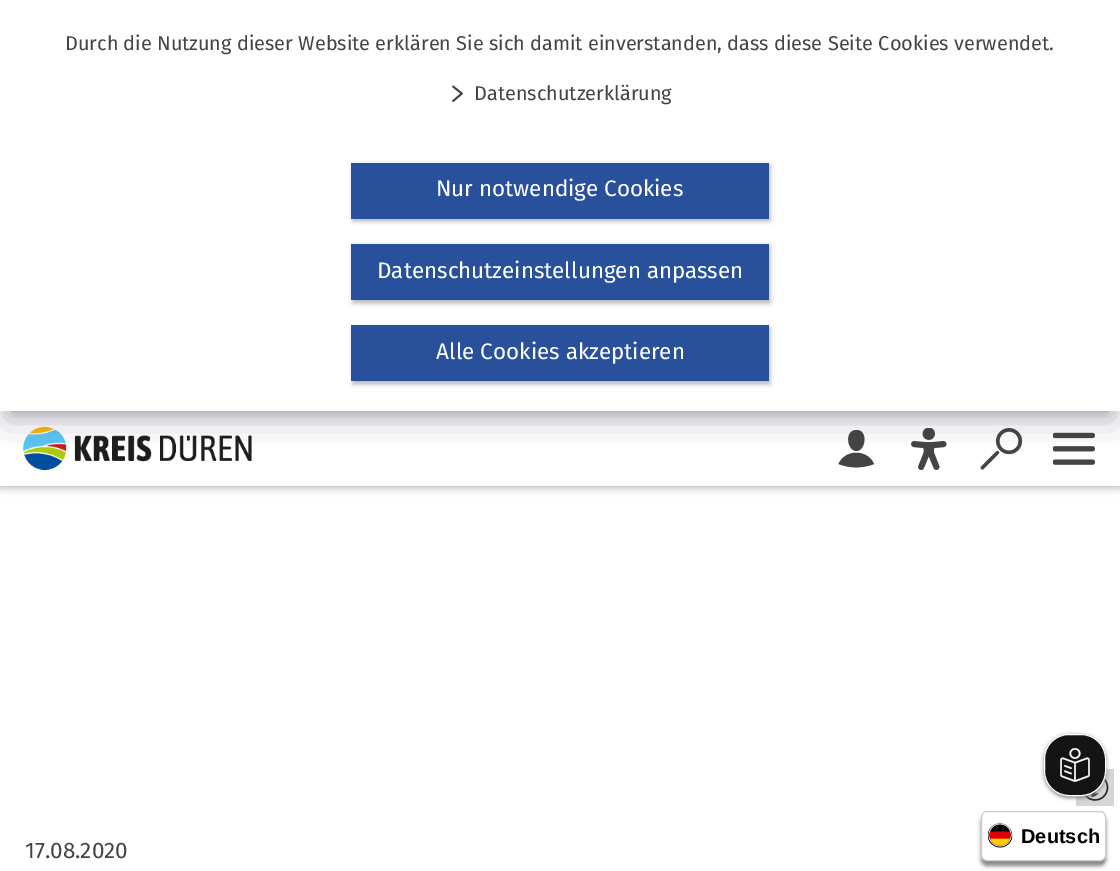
%!PS-Adobe-3.0
%%BoundingBox: 0 0 1120 871
%%LanguageLevel: 3
%%Pages: 1
%%EndComments
%%BeginProlog
/setink { 3 { 255 div 3 1 roll } repeat setrgbcolor } def
/usefont { [ exch dup neg 0 0 3 -1 roll 0 0 ] selectfont } def
/drawtext { setink usefont moveto show } def
/fillbox { setink rectfill } def
/setalpha { dup .setfillconstantalpha .setstrokeconstantalpha } def
/rrect { 5 dict begin { /r /h /w /y /x } { exch def } forall
  x r add y moveto x w add y 2 copy h add r arct x w add y h add x 1 index r arct
  x y h add x y r arct x y 2 copy exch w add exch r arct closepath end } def
/softshadow { 12 dict begin { /a /b /q /h /w /y /x } { exch def } forall gsave /was 0 def
  9 -2 -9 { dup b mul 4 div /e exch def 1 sub .425 mul 2.718 exch exp 1 add a .99 .min exch div /now exch def
    1 1 now sub 1 was sub div sub setalpha /was now def
    w h .min e 2 mul add 0 gt { x e sub y e sub w e 2 mul add h e 2 mul add
      q e add b .6 mul add w h .min 2 div e add .min 0 .max rrect fill } if } for grestore end } def
/drawimage { 5 dict begin { /h /w /y /x /name } { exch def } forall
  gsave x y translate w h scale
  w h 8 [w 0 0 h 0 0] name (r) file false 3 colorimage grestore end } def
%%EndProlog
%%BeginSetup
<< /PageSize [1120 871] /PageUsesTransparency true >> setpagedevice
%%EndSetup
%%Page: 1 1
0 .pushpdf14devicefilter
0 871 translate 1 -1 scale
4 setmiterlimit
0 0 1120 871 255 255 255 fillbox
gsave
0 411 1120 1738 rectclip
0 0 0 setink
0 411 1120 75 0 5 0.4 softshadow
grestore
0 411 1120 75 255 255 255 fillbox
(assets/img4.rgb) 22 426 230 45 drawimage
68 68 68 setink
838.5 464 moveto 850 468.5 862.5 468.5 874 464 curveto 867.5 449 845 449 838.5 464 curveto closepath 856.5 430 moveto 844 430 847 451 856.5 451 curveto 865.5 451 868.5 430 856.5 430 curveto closepath fill
(assets/img5.rgb) 911 428 36 42 drawimage
(assets/img6.rgb) 980 428 43 42 drawimage
(assets/img7.rgb) 1053 432 42 33 drawimage
gsave
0 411 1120 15 rectclip
0 0 0 setink
10 20 1100 391 0 10 0.3 softshadow
grestore
gsave
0 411 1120 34 rectclip
50 50 93 setink
6 23 1108 398 0 17 0.25 softshadow
grestore
(Durch die Nutzung dieser Website erklären Sie sich damit einverstanden, dass diese Seite Cookies verwendet.) 65 50 /FiraSans-Regular 20 68 68 68 drawtext
(assets/img1.rgb) 452 85 11 17 drawimage
(Datenschutzerklärung) 474 100 /FiraSans-Regular 20 68 68 68 drawtext
0 0 0 setink
353 165 417 56 0 2.5 0.3 softshadow
351 163 418 56 40 80 155 fillbox
(Nur notwendige Cookies) 436 196 /FiraSans-Regular 22.5 255 255 255 drawtext
0 0 0 setink
353 246 417 57 0 2.5 0.3 softshadow
351 244 418 56 40 80 155 fillbox
(Datenschutzeinstellungen anpassen) 377 278 /FiraSans-Regular 22.5 255 255 255 drawtext
0 0 0 setink
353 328 417 56 0 2.5 0.3 softshadow
351 325 418 56 40 80 155 fillbox
(Alle Cookies akzeptieren) 436 359 /FiraSans-Regular 22.5 255 255 255 drawtext
1076 769 38 37 213 213 213 fillbox
(assets/img8.rgb) 1084 778 25 23 drawimage
132 132 132 setink
1044 735 62 63 25 2 1 softshadow
21 20 20 setink
1044.5 734.5 61 61 24.5 rrect gsave fill grestore
255 255 255 setink
stroke
(assets/img2.rgb) 1060 748 30 34 drawimage
132 132 132 setink
981 816 125 50 6 2 1 softshadow
255 255 255 setink
981.5 811.5 124 49 5.5 rrect gsave fill grestore
204 204 204 setink
stroke
(assets/img3.rgb) 988 823 25 25 drawimage
(Deutsch) 1021 843 /LiberationSans-Bold 20 0 0 0 drawtext
(17.08.2020) 25 858 /FiraSans-Regular 22.5 68 68 68 drawtext
.poppdf14devicefilter showpage
%%EOF
